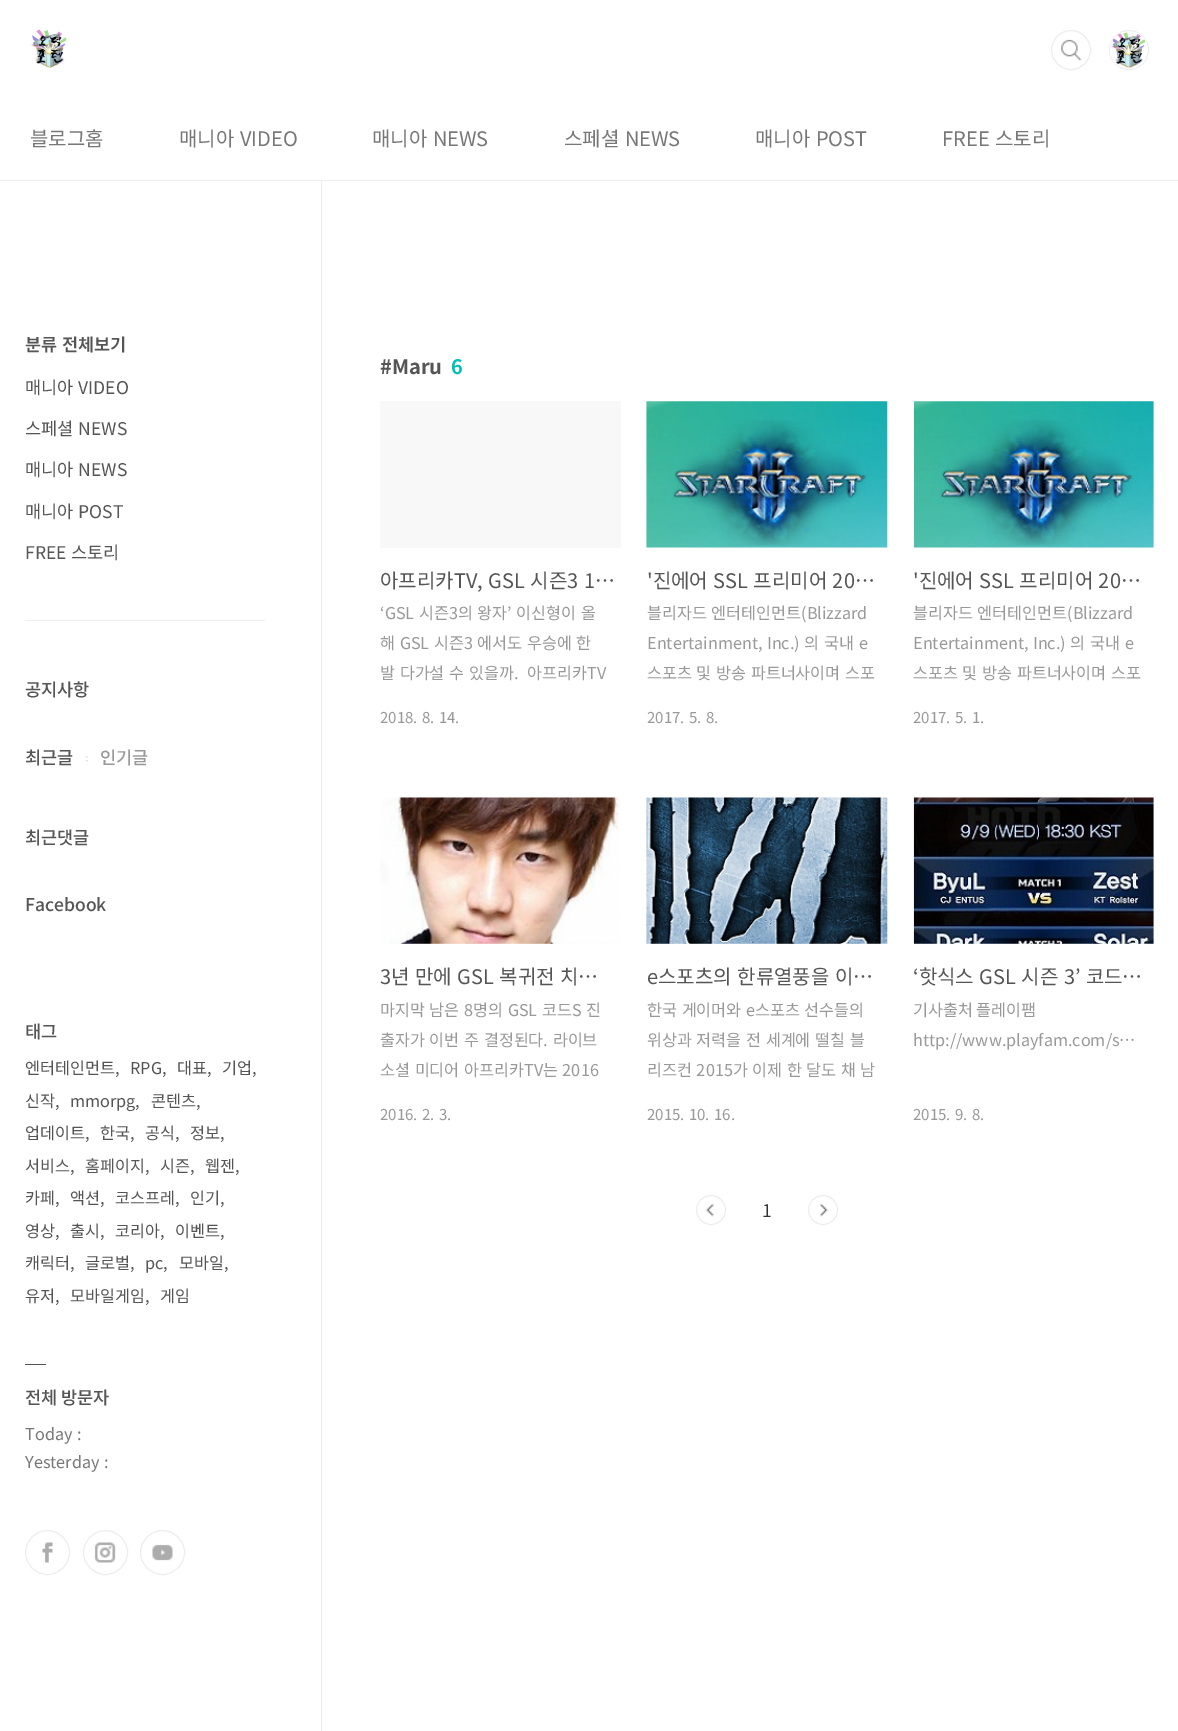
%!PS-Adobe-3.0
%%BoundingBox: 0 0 1178 1731
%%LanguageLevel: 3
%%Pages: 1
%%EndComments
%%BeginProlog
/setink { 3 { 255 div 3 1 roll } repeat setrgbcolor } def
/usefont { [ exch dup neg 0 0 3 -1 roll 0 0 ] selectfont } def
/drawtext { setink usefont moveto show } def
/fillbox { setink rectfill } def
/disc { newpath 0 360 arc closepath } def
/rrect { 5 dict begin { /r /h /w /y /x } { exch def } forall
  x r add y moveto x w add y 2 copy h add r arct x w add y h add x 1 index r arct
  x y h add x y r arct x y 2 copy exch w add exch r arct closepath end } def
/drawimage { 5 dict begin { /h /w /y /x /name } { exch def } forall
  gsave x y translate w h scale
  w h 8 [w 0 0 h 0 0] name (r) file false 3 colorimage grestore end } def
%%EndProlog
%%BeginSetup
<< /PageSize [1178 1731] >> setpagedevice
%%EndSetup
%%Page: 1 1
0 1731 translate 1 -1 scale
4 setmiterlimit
0 0 1178 1731 255 255 255 fillbox
0 180 1178 1 238 238 238 fillbox
(assets/img1.rgb) 31 29 36 39 drawimage
1053.5 31.5 36 37 18 rrect stroke
255 255 255 setink
1071 50 20 disc fill
(assets/img2.rgb) 1061 39 21 22 drawimage
238 238 238 setink
1071 50 19.5 disc stroke
1129 50 19.5 disc stroke
(assets/img3.rgb) 1110 32 36 36 drawimage
(블로그홈) 30 146 /NotoSansKR-Regular 20 119 119 119 drawtext
179 146 moveto 1 0 32 (매니아 VIDEO) widthshow
372 146 moveto 1 0 32 (매니아 NEWS) widthshow
564 146 moveto 1 0 32 (스페셜 NEWS) widthshow
755 146 moveto 1 0 32 (매니아 POST) widthshow
942 146 moveto 1 0 32 (FREE 스토리) widthshow
/NotoSansKR-SemiBold 17.5 usefont
85 85 85 setink
25 351 moveto 1 0 32 (분류 전체보기) widthshow
/NotoSansKR-Regular 17.5 usefont
25 394 moveto 1 0 32 (매니아 VIDEO) widthshow
25 435 moveto 1 0 32 (스페셜 NEWS) widthshow
25 476 moveto 1 0 32 (매니아 NEWS) widthshow
25 518 moveto 1 0 32 (매니아 POST) widthshow
25 559 moveto 1 0 32 (FREE 스토리) widthshow
25 620 240 1 238 238 238 fillbox
(공지사항) 25 696 /NotoSansKR-Medium 17.5 85 85 85 drawtext
(최근글) 25 764 /NotoSansKR-Medium 17.5 85 85 85 drawtext
(assets/img4.rgb) 86 756 2 6 drawimage
(인기글) 100 764 /NotoSansKR-Medium 17.5 153 153 153 drawtext
(최근댓글) 25 844 /NotoSansKR-Medium 17.5 85 85 85 drawtext
(Facebook) 25 911 /NotoSansKR-Medium 17.5 85 85 85 drawtext
(태그) 25 1038 /NotoSansKR-Medium 17.5 85 85 85 drawtext
(엔터테인먼트,) 25 1074 /NotoSansKR-Regular 16.25 85 85 85 drawtext
(RPG,) 130 1074 /NotoSansKR-Regular 16.25 85 85 85 drawtext
(대표,) 177 1074 /NotoSansKR-Regular 16.25 85 85 85 drawtext
(기업,) 222 1074 /NotoSansKR-Regular 16.25 85 85 85 drawtext
(신작,) 25 1107 /NotoSansKR-Regular 16.25 85 85 85 drawtext
(mmorpg,) 70 1107 /NotoSansKR-Regular 16.25 85 85 85 drawtext
(콘텐츠,) 151 1107 /NotoSansKR-Regular 16.25 85 85 85 drawtext
(업데이트,) 25 1139 /NotoSansKR-Regular 16.25 85 85 85 drawtext
(한국,) 100 1139 /NotoSansKR-Regular 16.25 85 85 85 drawtext
(공식,) 145 1139 /NotoSansKR-Regular 16.25 85 85 85 drawtext
(정보,) 190 1139 /NotoSansKR-Regular 16.25 85 85 85 drawtext
(서비스,) 25 1172 /NotoSansKR-Regular 16.25 85 85 85 drawtext
(홈페이지,) 85 1172 /NotoSansKR-Regular 16.25 85 85 85 drawtext
(시즌,) 160 1172 /NotoSansKR-Regular 16.25 85 85 85 drawtext
(웹젠,) 205 1172 /NotoSansKR-Regular 16.25 85 85 85 drawtext
(카페,) 25 1204 /NotoSansKR-Regular 16.25 85 85 85 drawtext
(액션,) 70 1204 /NotoSansKR-Regular 16.25 85 85 85 drawtext
(코스프레,) 115 1204 /NotoSansKR-Regular 16.25 85 85 85 drawtext
(인기,) 190 1204 /NotoSansKR-Regular 16.25 85 85 85 drawtext
(영상,) 25 1237 /NotoSansKR-Regular 16.25 85 85 85 drawtext
(출시,) 70 1237 /NotoSansKR-Regular 16.25 85 85 85 drawtext
(코리아,) 115 1237 /NotoSansKR-Regular 16.25 85 85 85 drawtext
(이벤트,) 175 1237 /NotoSansKR-Regular 16.25 85 85 85 drawtext
(캐릭터,) 25 1269 /NotoSansKR-Regular 16.25 85 85 85 drawtext
(글로벌,) 85 1269 /NotoSansKR-Regular 16.25 85 85 85 drawtext
(pc,) 145 1269 /NotoSansKR-Regular 16.25 85 85 85 drawtext
(모바일,) 179 1269 /NotoSansKR-Regular 16.25 85 85 85 drawtext
(유저,) 25 1302 /NotoSansKR-Regular 16.25 85 85 85 drawtext
(모바일게임,) 70 1302 /NotoSansKR-Regular 16.25 85 85 85 drawtext
(게임) 160 1302 /NotoSansKR-Regular 16.25 85 85 85 drawtext
25 1364 21 1 85 85 85 fillbox
(전체 방문자) 25 1404 /NotoSansKR-Medium 17.5 85 85 85 drawtext
/NotoSansKR-Regular 16.25 usefont
119 119 119 setink
25 1440 moveto 1 0 32 (Today :) widthshow
25 1468 moveto 1 0 32 (Yesterday :) widthshow
(assets/img5.rgb) 42 1542 11 21 drawimage
238 238 238 setink
47.5 1552.5 22 disc stroke
(assets/img6.rgb) 94 1542 22 21 drawimage
105.5 1552.5 22 disc stroke
(assets/img7.rgb) 152 1544 21 17 drawimage
162.5 1552.5 22 disc stroke
321 181 1 1550 238 238 238 fillbox
(#Maru) 380 374 /NotoSansKR-Bold 20 85 85 85 drawtext
(6) 451 374 /NotoSansKR-Bold 20 4 190 184 drawtext
380 401 241 147 248 248 248 fillbox
/NotoSansKR-Regular 20 usefont
85 85 85 setink
380 588 moveto 1 0 32 (아프리카TV, GSL 시즌3 1…) widthshow
/NotoSansKR-Regular 16.25 usefont
153 153 153 setink
380 619 moveto 1 0 32 (‘GSL 시즌3의 왕자’ 이신형이 올) widthshow
380 649 moveto 1 0 32 (해 GSL 시즌3 에서도 우승에 한) widthshow
380 679 moveto 1 0 32 (발 다가설 수 있을까.  아프리카TV) widthshow
/NotoSansKR-Regular 15 usefont
380 723 moveto 1 0 32 (2018. 8. 14.) widthshow
646 401 242 147 248 248 248 fillbox
(assets/img8.rgb) 646 401 242 147 drawimage
/NotoSansKR-Regular 20 usefont
85 85 85 setink
647 588 moveto 1 0 32 ('진에어 SSL 프리미어 20…) widthshow
/NotoSansKR-Regular 16.25 usefont
153 153 153 setink
647 619 moveto 1 0 32 (블리자드 엔터테인먼트\(Blizzard) widthshow
647 649 moveto 1 0 32 (Entertainment, Inc.\) 의 국내 e) widthshow
647 679 moveto 1 0 32 (스포츠 및 방송 파트너사이며 스포) widthshow
/NotoSansKR-Regular 15 usefont
647 723 moveto 1 0 32 (2017. 5. 8.) widthshow
914 401 240 147 248 248 248 fillbox
(assets/img9.rgb) 913 401 241 147 drawimage
/NotoSansKR-Regular 20 usefont
85 85 85 setink
913 588 moveto 1 0 32 ('진에어 SSL 프리미어 20…) widthshow
/NotoSansKR-Regular 16.25 usefont
153 153 153 setink
913 619 moveto 1 0 32 (블리자드 엔터테인먼트\(Blizzard) widthshow
913 649 moveto 1 0 32 (Entertainment, Inc.\) 의 국내 e) widthshow
913 679 moveto 1 0 32 (스포츠 및 방송 파트너사이며 스포) widthshow
/NotoSansKR-Regular 15 usefont
913 723 moveto 1 0 32 (2017. 5. 1.) widthshow
(assets/img10.rgb) 380 797 241 147 drawimage
/NotoSansKR-Regular 20 usefont
85 85 85 setink
380 984 moveto 1 0 32 (3년 만에 GSL 복귀전 치…) widthshow
/NotoSansKR-Regular 16.25 usefont
153 153 153 setink
380 1016 moveto 1 0 32 (마지막 남은 8명의 GSL 코드S 진) widthshow
380 1046 moveto 1 0 32 (출자가 이번 주 결정된다. 라이브) widthshow
380 1076 moveto 1 0 32 (소셜 미디어 아프리카TV는 2016) widthshow
/NotoSansKR-Regular 15 usefont
380 1120 moveto 1 0 32 (2016. 2. 3.) widthshow
646 798 242 146 248 248 248 fillbox
(assets/img11.rgb) 646 797 242 147 drawimage
/NotoSansKR-Regular 20 usefont
85 85 85 setink
647 984 moveto 1 0 32 (e스포츠의 한류열풍을 이…) widthshow
/NotoSansKR-Regular 16.25 usefont
153 153 153 setink
647 1016 moveto 1 0 32 (한국 게이머와 e스포츠 선수들의) widthshow
647 1046 moveto 1 0 32 (위상과 저력을 전 세계에 떨칠 블) widthshow
647 1076 moveto 1 0 32 (리즈컨 2015가 이제 한 달도 채 남) widthshow
/NotoSansKR-Regular 15 usefont
647 1120 moveto 1 0 32 (2015. 10. 16.) widthshow
914 798 240 146 248 248 248 fillbox
(assets/img12.rgb) 913 797 241 147 drawimage
/NotoSansKR-Regular 20 usefont
85 85 85 setink
913 984 moveto 1 0 32 (‘핫식스 GSL 시즌 3’ 코드…) widthshow
(기사출처 플레이팸) 913 1016 /NotoSansKR-Regular 16.25 153 153 153 drawtext
(http://www.playfam.com/s…) 913 1046 /NotoSansKR-Regular 16.25 153 153 153 drawtext
/NotoSansKR-Regular 15 usefont
913 1120 moveto 1 0 32 (2015. 9. 8.) widthshow
(assets/img13.rgb) 706 1203 8 14 drawimage
238 238 238 setink
711 1210 14.5 disc stroke
(1) 762 1217 /NotoSansKR-Regular 17.5 51 51 51 drawtext
(assets/img14.rgb) 820 1203 8 14 drawimage
238 238 238 setink
823 1210 14.5 disc stroke
showpage
%%EOF
